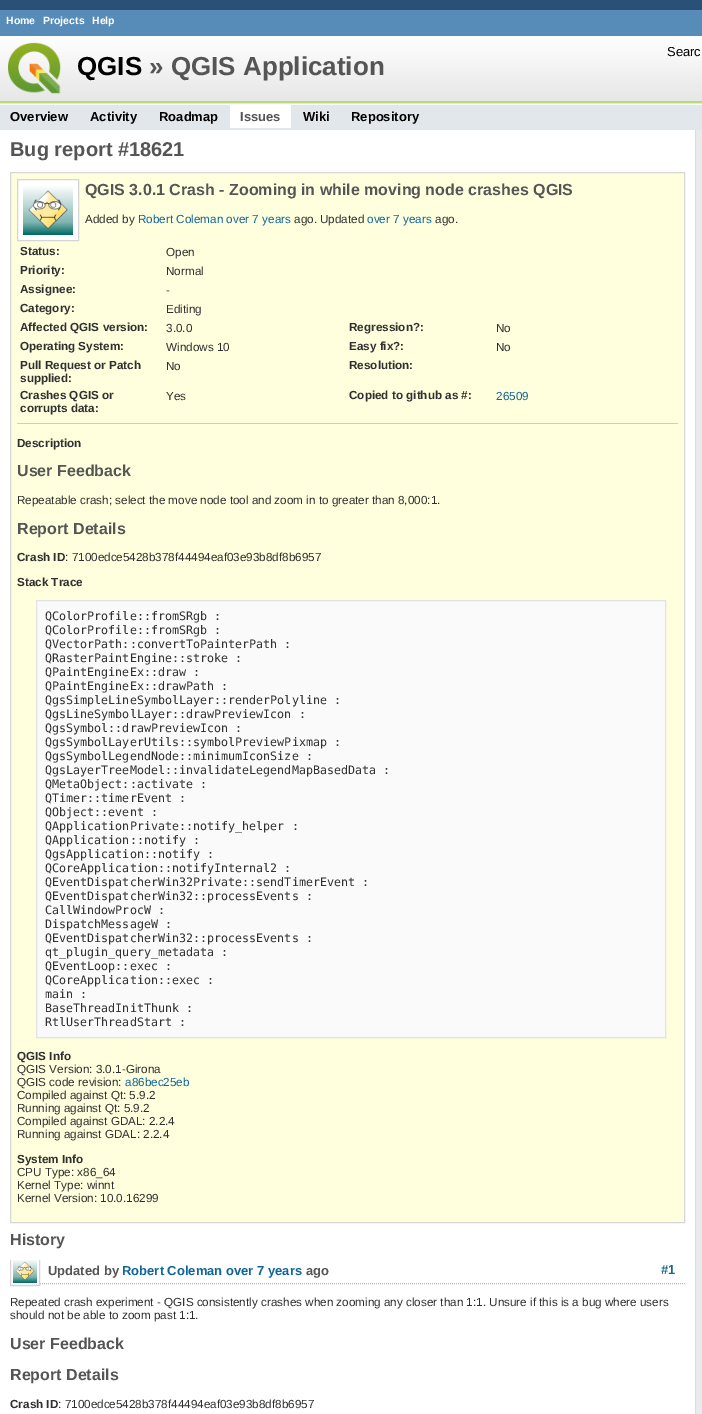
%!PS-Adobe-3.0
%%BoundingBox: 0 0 702 1414
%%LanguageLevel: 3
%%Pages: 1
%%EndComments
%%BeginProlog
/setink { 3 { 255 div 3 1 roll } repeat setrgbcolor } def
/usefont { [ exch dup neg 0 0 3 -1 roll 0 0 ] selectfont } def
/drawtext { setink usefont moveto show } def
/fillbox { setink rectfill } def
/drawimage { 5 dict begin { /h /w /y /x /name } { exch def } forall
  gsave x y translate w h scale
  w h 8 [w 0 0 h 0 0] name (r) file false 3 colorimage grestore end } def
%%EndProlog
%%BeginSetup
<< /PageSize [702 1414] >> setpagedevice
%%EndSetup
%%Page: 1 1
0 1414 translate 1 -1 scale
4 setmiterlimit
0 0 702 1414 42 80 117 fillbox
0 10 702 26 87 139 184 fillbox
(Home) 6 24 /LiberationSans-Bold 10.5 255 255 255 drawtext
(Projects) 43 24 /LiberationSans-Bold 10.5 255 255 255 drawtext
(Help) 92 24 /LiberationSans-Bold 10.5 255 255 255 drawtext
0 105 702 25 226 231 235 fillbox
(assets/img1.rgb) 0 36 702 68 drawimage
(Searc) 667 56 /LiberationSans-Regular 13 0 0 0 drawtext
(assets/img2.rgb) 8 42 53 52 drawimage
(QGIS) 77 75 /LiberationSans-Bold 26 0 0 0 drawtext
(» QGIS Application) 149 75 /LiberationSans-Bold 26 85 85 85 drawtext
0 104 702 1 255 255 255 fillbox
(Overview) 10 121 /LiberationSans-Bold 13 0 0 0 drawtext
(Activity) 90 121 /LiberationSans-Bold 13 0 0 0 drawtext
(Roadmap) 159 121 /LiberationSans-Bold 13 0 0 0 drawtext
230 105 61 23 255 255 255 fillbox
(Issues) 240 121 /LiberationSans-Bold 13 85 85 85 drawtext
(Wiki) 303 121 /LiberationSans-Bold 13 0 0 0 drawtext
(Repository) 351 121 /LiberationSans-Bold 13 0 0 0 drawtext
696 130 6 1284 232 234 236 fillbox
0 130 695 1284 255 255 255 fillbox
695 130 1 1284 221 221 221 fillbox
(Bug report #18621) 10 156 /LiberationSans-Bold 20 85 85 85 drawtext
255 255 221 setink
10.5 172.5 moveto 684.5 172.5 lineto 684.5 1222.5 lineto 10.5 1222.5 lineto closepath gsave fill grestore
215 215 215 setink
stroke
255 255 255 setink
17.5 179.5 moveto 78.5 179.5 lineto 78.5 240.5 lineto 17.5 240.5 lineto closepath gsave fill grestore
213 213 213 setink
stroke
(assets/img3.rgb) 23 186 50 49 drawimage
(QGIS 3.0.1 Crash - Zooming in while moving node crashes QGIS) 85 195 /LiberationSans-Bold 16 85 85 85 drawtext
(Added by) 85 223 /LiberationSans-Regular 11.7 48 48 48 drawtext
(Robert Coleman over 7 years) 138 223 /LiberationSans-Regular 11.7 17 102 153 drawtext
(ago. Updated) 294 223 /LiberationSans-Regular 11.7 48 48 48 drawtext
(over 7 years) 367 223 /LiberationSans-Regular 11.7 17 102 153 drawtext
(ago.) 435 223 /LiberationSans-Regular 11.7 48 48 48 drawtext
(Status:) 20 255 /LiberationSans-Bold 11.7 48 48 48 drawtext
(Open) 166 256 /LiberationSans-Regular 11.7 48 48 48 drawtext
(Priority:) 20 274 /LiberationSans-Bold 11.7 48 48 48 drawtext
(Normal) 166 275 /LiberationSans-Regular 11.7 48 48 48 drawtext
(Assignee:) 20 293 /LiberationSans-Bold 11.7 48 48 48 drawtext
(-) 166 294 /LiberationSans-Regular 11.7 48 48 48 drawtext
(Category:) 20 312 /LiberationSans-Bold 11.7 48 48 48 drawtext
(Editing) 166 313 /LiberationSans-Regular 11.7 48 48 48 drawtext
(Affected QGIS version:) 20 331 /LiberationSans-Bold 11.7 48 48 48 drawtext
(3.0.0) 166 332 /LiberationSans-Regular 11.7 48 48 48 drawtext
(Regression?:) 349 331 /LiberationSans-Bold 11.7 48 48 48 drawtext
(No) 496 332 /LiberationSans-Regular 11.7 48 48 48 drawtext
(Operating System:) 20 350 /LiberationSans-Bold 11.7 48 48 48 drawtext
(Windows 10) 166 351 /LiberationSans-Regular 11.7 48 48 48 drawtext
(Easy fix?:) 349 350 /LiberationSans-Bold 11.7 48 48 48 drawtext
(No) 496 351 /LiberationSans-Regular 11.7 48 48 48 drawtext
(Pull Request or Patch) 20 369 /LiberationSans-Bold 11.7 48 48 48 drawtext
(supplied:) 20 382 /LiberationSans-Bold 11.7 48 48 48 drawtext
(No) 166 370 /LiberationSans-Regular 11.7 48 48 48 drawtext
(Resolution:) 349 369 /LiberationSans-Bold 11.7 48 48 48 drawtext
(Crashes QGIS or) 20 399 /LiberationSans-Bold 11.7 48 48 48 drawtext
(corrupts data:) 20 412 /LiberationSans-Bold 11.7 48 48 48 drawtext
(Yes) 166 400 /LiberationSans-Regular 11.7 48 48 48 drawtext
(Copied to github as #:) 349 399 /LiberationSans-Bold 11.7 48 48 48 drawtext
(26509) 496 400 /LiberationSans-Regular 11.7 17 102 153 drawtext
17 423 661 1 204 204 204 fillbox
(Description) 17 447 /LiberationSans-Bold 11.7 48 48 48 drawtext
(User Feedback) 17 476 /LiberationSans-Bold 16 85 85 85 drawtext
(Repeatable crash; select the move node tool and zoom in to greater than 8,000:1.) 17 504 /LiberationSans-Regular 11.7 48 48 48 drawtext
(Report Details) 17 534 /LiberationSans-Bold 16 85 85 85 drawtext
(Crash ID) 17 561 /LiberationSans-Bold 11.7 48 48 48 drawtext
(: 7100edce5428b378f44494eaf03e93b8df8b6957) 65 561 /LiberationSans-Regular 11.7 48 48 48 drawtext
(Stack Trace) 17 586 /LiberationSans-Bold 11.7 48 48 48 drawtext
250 250 250 setink
36.5 600.5 moveto 665.5 600.5 lineto 665.5 1037.5 lineto 36.5 1037.5 lineto closepath gsave fill grestore
226 226 226 setink
stroke
(QColorProfile::fromSRgb :) 45 620 /DejaVuSansMono-Regular 11.7 48 48 48 drawtext
(QColorProfile::fromSRgb :) 45 634 /DejaVuSansMono-Regular 11.7 48 48 48 drawtext
(QVectorPath::convertToPainterPath :) 45 648 /DejaVuSansMono-Regular 11.7 48 48 48 drawtext
(QRasterPaintEngine::stroke :) 45 662 /DejaVuSansMono-Regular 11.7 48 48 48 drawtext
(QPaintEngineEx::draw :) 45 676 /DejaVuSansMono-Regular 11.7 48 48 48 drawtext
(QPaintEngineEx::drawPath :) 45 690 /DejaVuSansMono-Regular 11.7 48 48 48 drawtext
(QgsSimpleLineSymbolLayer::renderPolyline :) 45 704 /DejaVuSansMono-Regular 11.7 48 48 48 drawtext
(QgsLineSymbolLayer::drawPreviewIcon :) 45 718 /DejaVuSansMono-Regular 11.7 48 48 48 drawtext
(QgsSymbol::drawPreviewIcon :) 45 732 /DejaVuSansMono-Regular 11.7 48 48 48 drawtext
(QgsSymbolLayerUtils::symbolPreviewPixmap :) 45 746 /DejaVuSansMono-Regular 11.7 48 48 48 drawtext
(QgsSymbolLegendNode::minimumIconSize :) 45 760 /DejaVuSansMono-Regular 11.7 48 48 48 drawtext
(QgsLayerTreeModel::invalidateLegendMapBasedData :) 45 774 /DejaVuSansMono-Regular 11.7 48 48 48 drawtext
(QMetaObject::activate :) 45 788 /DejaVuSansMono-Regular 11.7 48 48 48 drawtext
(QTimer::timerEvent :) 45 802 /DejaVuSansMono-Regular 11.7 48 48 48 drawtext
(QObject::event :) 45 816 /DejaVuSansMono-Regular 11.7 48 48 48 drawtext
(QApplicationPrivate::notify_helper :) 45 830 /DejaVuSansMono-Regular 11.7 48 48 48 drawtext
(QApplication::notify :) 45 844 /DejaVuSansMono-Regular 11.7 48 48 48 drawtext
(QgsApplication::notify :) 45 858 /DejaVuSansMono-Regular 11.7 48 48 48 drawtext
(QCoreApplication::notifyInternal2 :) 45 872 /DejaVuSansMono-Regular 11.7 48 48 48 drawtext
(QEventDispatcherWin32Private::sendTimerEvent :) 45 886 /DejaVuSansMono-Regular 11.7 48 48 48 drawtext
(QEventDispatcherWin32::processEvents :) 45 900 /DejaVuSansMono-Regular 11.7 48 48 48 drawtext
(CallWindowProcW :) 45 914 /DejaVuSansMono-Regular 11.7 48 48 48 drawtext
(DispatchMessageW :) 45 928 /DejaVuSansMono-Regular 11.7 48 48 48 drawtext
(QEventDispatcherWin32::processEvents :) 45 942 /DejaVuSansMono-Regular 11.7 48 48 48 drawtext
(qt_plugin_query_metadata :) 45 956 /DejaVuSansMono-Regular 11.7 48 48 48 drawtext
(QEventLoop::exec :) 45 970 /DejaVuSansMono-Regular 11.7 48 48 48 drawtext
(QCoreApplication::exec :) 45 984 /DejaVuSansMono-Regular 11.7 48 48 48 drawtext
(main :) 45 998 /DejaVuSansMono-Regular 11.7 48 48 48 drawtext
(BaseThreadInitThunk :) 45 1012 /DejaVuSansMono-Regular 11.7 48 48 48 drawtext
(RtlUserThreadStart :) 45 1026 /DejaVuSansMono-Regular 11.7 48 48 48 drawtext
(QGIS Info) 17 1060 /LiberationSans-Bold 11.7 48 48 48 drawtext
(QGIS Version: 3.0.1-Girona) 17 1073 /LiberationSans-Regular 11.7 48 48 48 drawtext
(QGIS code revision:) 17 1086 /LiberationSans-Regular 11.7 48 48 48 drawtext
(a86bec25eb) 125 1086 /LiberationSans-Regular 11.7 17 102 153 drawtext
(Compiled against Qt: 5.9.2) 17 1099 /LiberationSans-Regular 11.7 48 48 48 drawtext
(Running against Qt: 5.9.2) 17 1112 /LiberationSans-Regular 11.7 48 48 48 drawtext
(Compiled against GDAL: 2.2.4) 17 1125 /LiberationSans-Regular 11.7 48 48 48 drawtext
(Running against GDAL: 2.2.4) 17 1138 /LiberationSans-Regular 11.7 48 48 48 drawtext
(System Info) 17 1163 /LiberationSans-Bold 11.7 48 48 48 drawtext
(CPU Type: x86_64) 17 1176 /LiberationSans-Regular 11.7 48 48 48 drawtext
(Kernel Type: winnt) 17 1189 /LiberationSans-Regular 11.7 48 48 48 drawtext
(Kernel Version: 10.0.16299) 17 1202 /LiberationSans-Regular 11.7 48 48 48 drawtext
(History) 10 1245 /LiberationSans-Bold 16 85 85 85 drawtext
187 187 187 setink
[1 1] 0 setdash
10 1283.5 moveto 685 1283.5 lineto stroke
12 1283 27 1 255 255 255 fillbox
gsave
10 1260 675 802 rectclip
213 213 213 setink
[] 0 setdash
10.5 1256.5 29 29 rectstroke
grestore
(assets/img4.rgb) 13 1260 24 23 drawimage
(Updated by) 48 1275 /LiberationSans-Bold 13 85 85 85 drawtext
(Robert Coleman over 7 years) 122 1275 /LiberationSans-Bold 13 17 102 153 drawtext
(ago) 306 1275 /LiberationSans-Bold 13 85 85 85 drawtext
(#1) 661 1274 /LiberationSans-Bold 13 17 102 153 drawtext
(Repeated crash experiment - QGIS consistently crashes when zooming any closer than 1:1. Unsure if this is a bug where users) 10 1306 /LiberationSans-Regular 11.7 48 48 48 drawtext
(should not be able to zoom past 1:1.) 10 1319 /LiberationSans-Regular 11.7 48 48 48 drawtext
(User Feedback) 10 1349 /LiberationSans-Bold 16 85 85 85 drawtext
(Report Details) 10 1380 /LiberationSans-Bold 16 85 85 85 drawtext
(Crash ID) 10 1408 /LiberationSans-Bold 11.7 48 48 48 drawtext
(: 7100edce5428b378f44494eaf03e93b8df8b6957) 58 1408 /LiberationSans-Regular 11.7 48 48 48 drawtext
showpage
%%EOF
